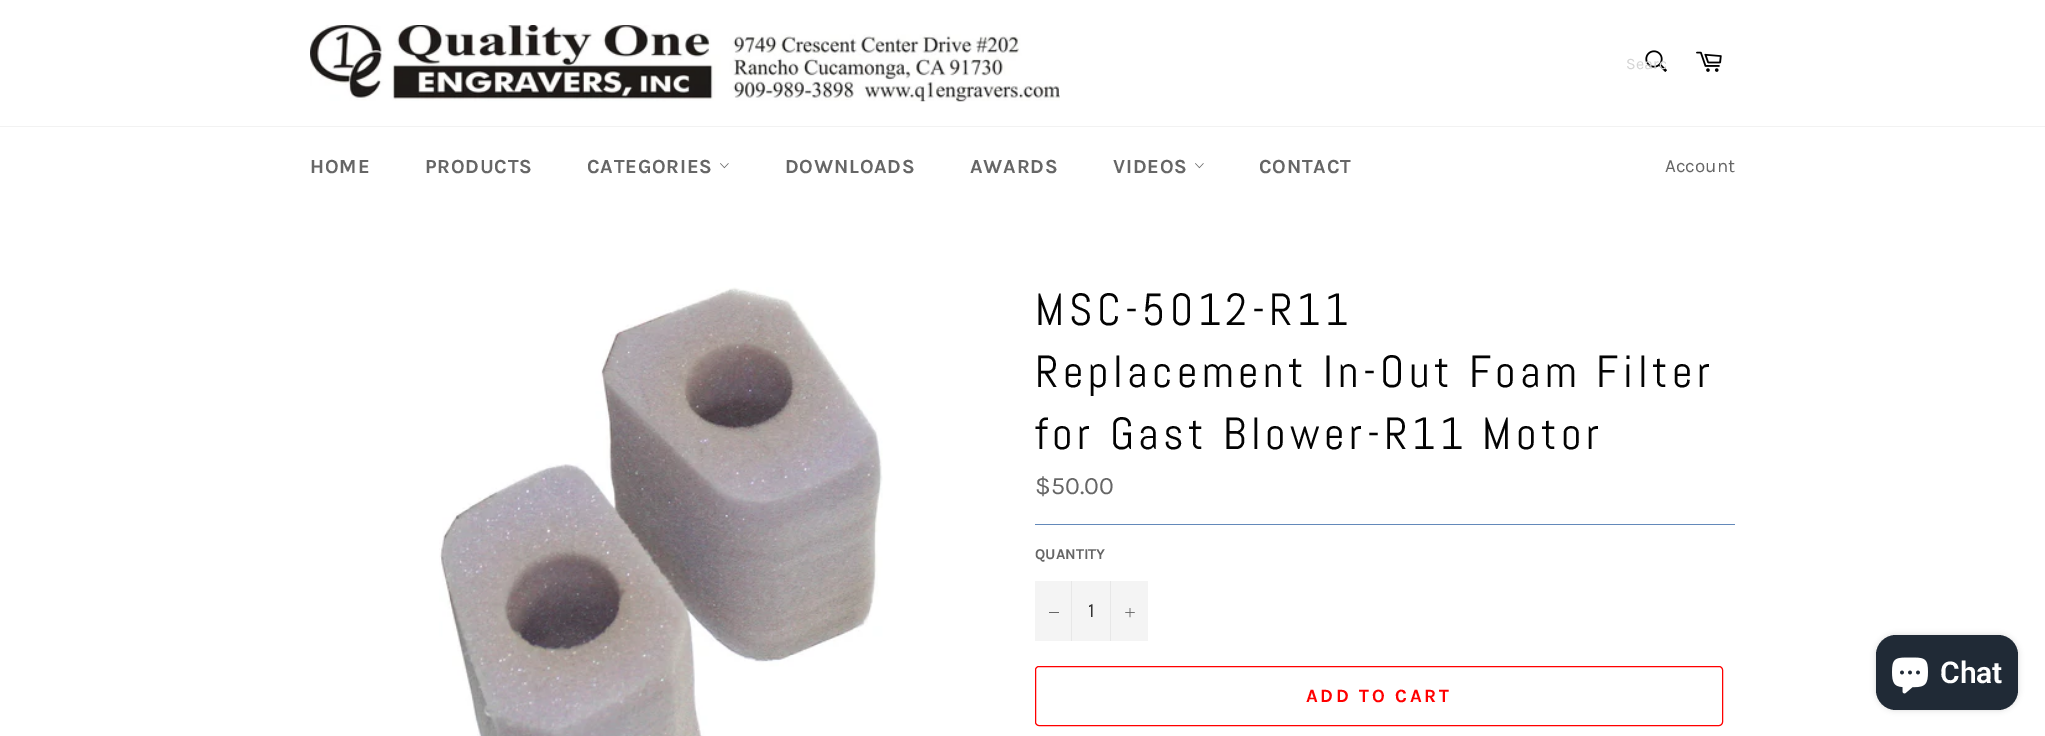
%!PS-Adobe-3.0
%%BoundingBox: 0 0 2045 736
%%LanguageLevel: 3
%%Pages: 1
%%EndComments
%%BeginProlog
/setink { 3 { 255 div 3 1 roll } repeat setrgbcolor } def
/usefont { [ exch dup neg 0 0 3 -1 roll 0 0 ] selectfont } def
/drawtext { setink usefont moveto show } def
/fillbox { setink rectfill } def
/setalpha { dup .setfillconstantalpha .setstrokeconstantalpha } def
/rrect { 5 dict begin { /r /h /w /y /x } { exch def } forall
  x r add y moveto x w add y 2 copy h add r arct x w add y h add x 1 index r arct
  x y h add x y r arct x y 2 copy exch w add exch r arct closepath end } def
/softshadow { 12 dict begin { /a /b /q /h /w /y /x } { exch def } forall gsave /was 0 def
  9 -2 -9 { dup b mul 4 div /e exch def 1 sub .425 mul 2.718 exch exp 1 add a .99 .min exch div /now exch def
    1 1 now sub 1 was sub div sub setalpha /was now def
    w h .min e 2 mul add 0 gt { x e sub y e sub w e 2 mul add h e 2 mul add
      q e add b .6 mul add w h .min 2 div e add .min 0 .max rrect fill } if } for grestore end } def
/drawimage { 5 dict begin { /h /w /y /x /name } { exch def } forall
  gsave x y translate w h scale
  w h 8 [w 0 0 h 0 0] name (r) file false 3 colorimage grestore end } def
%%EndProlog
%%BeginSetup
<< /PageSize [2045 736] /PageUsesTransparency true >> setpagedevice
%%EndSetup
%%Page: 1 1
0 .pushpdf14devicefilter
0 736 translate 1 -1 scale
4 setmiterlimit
0 0 2045 736 255 255 255 fillbox
(assets/img1.rgb) 310 25 750 77 drawimage
(assets/img2.rgb) 1645 50 22 22 drawimage
gsave
1626 54 40 19 rectclip
(Searc) 1626 69 /Karla-Regular 16 212 212 212 drawtext
grestore
(assets/img3.rgb) 1696 51 26 21 drawimage
0 126 2045 1 242 242 242 fillbox
/Karla-Bold 20 usefont
102 102 102 setink
310 173 moveto 0.75 0 (HOME) ashow
425 173 moveto 0.75 0 (PRODUCTS) ashow
587 173 moveto 0.75 0 (CATEGORIES) ashow
(assets/img4.rgb) 720 163 9 6 drawimage
785 173 moveto 0.75 0 (DOWNLOADS) ashow
970 173 moveto 0.75 0 (AWARDS) ashow
1113 173 moveto 0.75 0 (VIDEOS) ashow
(assets/img4.rgb) 1195 163 9 6 drawimage
1259 173 moveto 0.75 0 (CONTACT) ashow
(Account) 1665 172 /Karla-Regular 18.75 102 102 102 drawtext
(assets/img5.rgb) 439 287 444 449 drawimage
/Abel-Regular 45 usefont
3 3 3 setink
1035 325 moveto 4.5 0 (MSC-5012-R11) ashow
1035 387 moveto 4.5 0 (Replacement In-Out Foam Filter) ashow
1035 449 moveto 4.5 0 (for Gast Blower-R11 Motor) ashow
($50.00) 1035 494 /Karla-Regular 25 102 102 102 drawtext
1035 524 700 1 99 137 186 fillbox
(QUANTITY) 1035 559 /Karla-Bold 15 102 102 102 drawtext
1035 581 113 60 244 244 244 fillbox
1071 581 1 60 231 231 231 fillbox
1049 612 10 1 102 102 102 fillbox
(1) 1088 617 /Karla-Regular 20 51 51 51 drawtext
1110 581 1 60 231 231 231 fillbox
(assets/img6.rgb) 1125 608 10 10 drawimage
255 0 0 setink
1035.5 666.5 687 59 3.5 rrect stroke
/Karla-Bold 18.75 usefont
1306 702 moveto 2.75 0 (ADD TO CART) ashow
0 0 0 setink
1876 635 142 75 20 3 0.15 softshadow
32 42 54 setink
1876 635 142 75 20 rrect fill
(assets/img7.rgb) 1892 657 36 37 drawimage
(Chat) 1940 683 /Roboto-SemiBold 30 255 255 255 drawtext
.poppdf14devicefilter showpage
%%EOF
